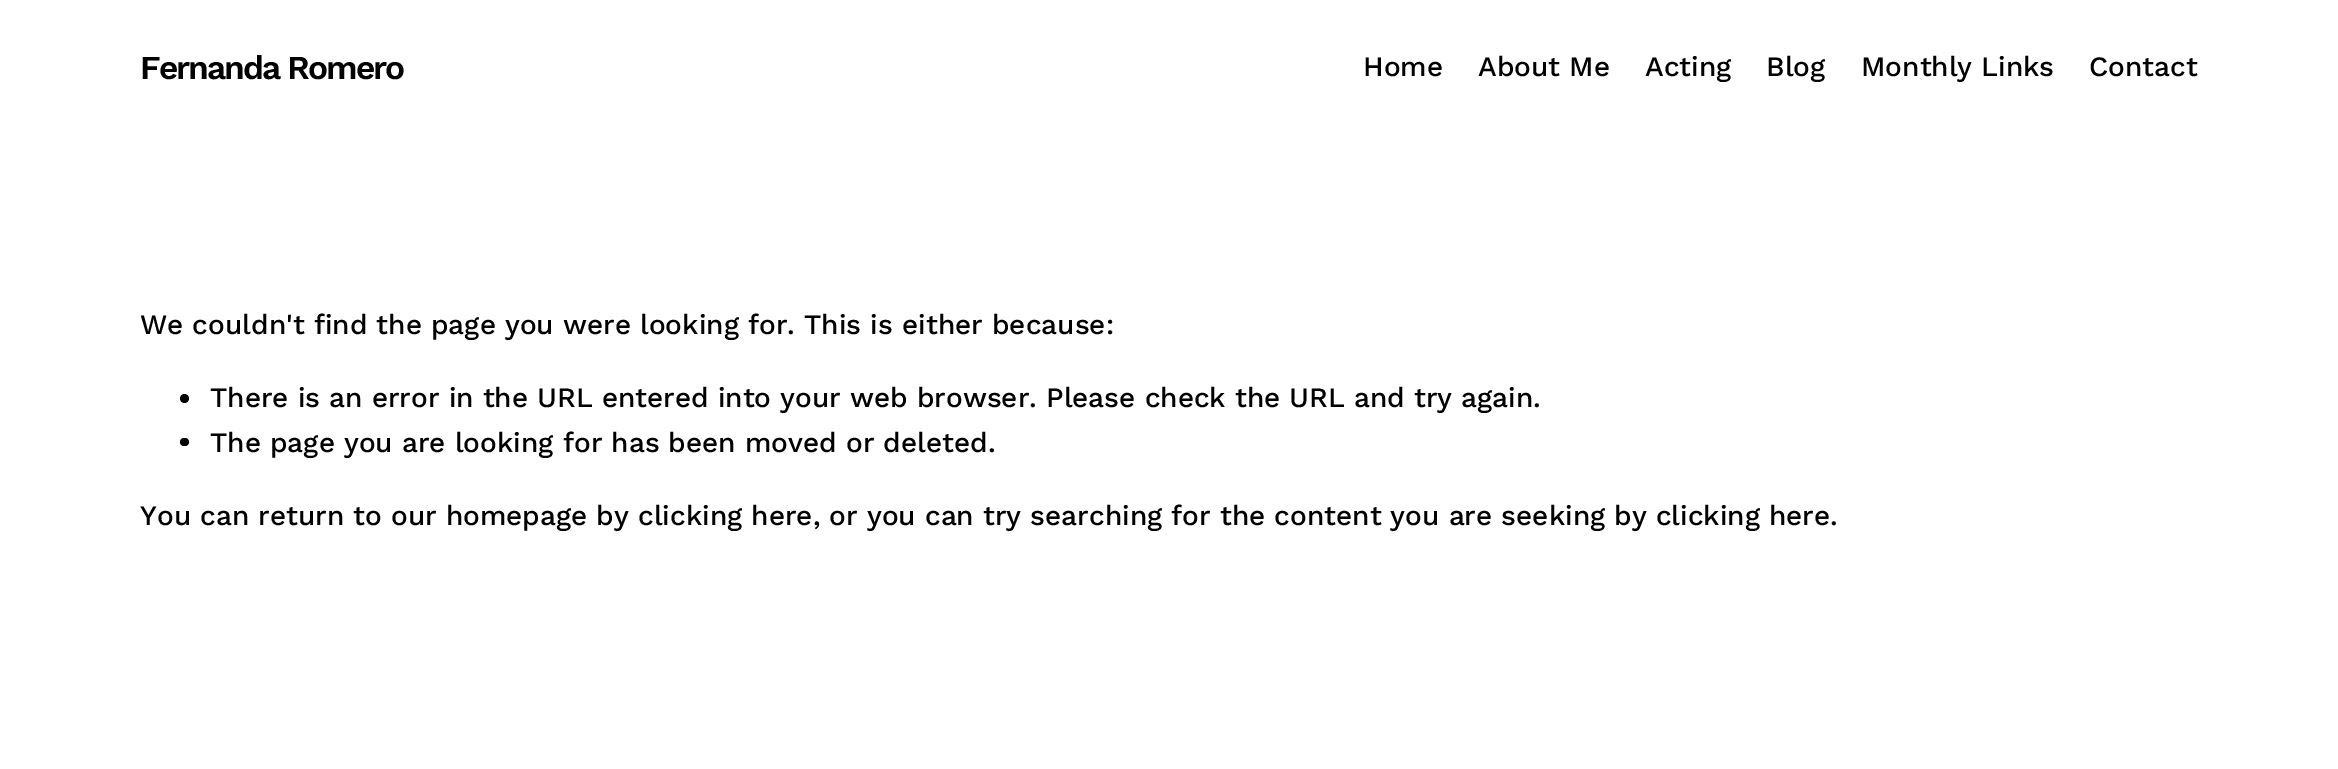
%!PS-Adobe-3.0
%%BoundingBox: 0 0 2338 769
%%LanguageLevel: 3
%%Pages: 1
%%EndComments
%%BeginProlog
/setink { 3 { 255 div 3 1 roll } repeat setrgbcolor } def
/usefont { [ exch dup neg 0 0 3 -1 roll 0 0 ] selectfont } def
/drawtext { setink usefont moveto show } def
/fillbox { setink rectfill } def
/disc { newpath 0 360 arc closepath } def
/rrect { 5 dict begin { /r /h /w /y /x } { exch def } forall
  x r add y moveto x w add y 2 copy h add r arct x w add y h add x 1 index r arct
  x y h add x y r arct x y 2 copy exch w add exch r arct closepath end } def
%%EndProlog
%%BeginSetup
<< /PageSize [2338 769] >> setpagedevice
%%EndSetup
%%Page: 1 1
0 769 translate 1 -1 scale
4 setmiterlimit
0 0 2338 769 255 255 255 fillbox
/WorkSans-SemiBold 33.5 usefont
0 0 0 setink
140 79 moveto -2 0 (Fernanda Romero) ashow
(Home) 1363 76 /WorkSans-Medium 28 0 0 0 drawtext
(About Me) 1478 76 /WorkSans-Medium 28 0 0 0 drawtext
(Acting) 1645 76 /WorkSans-Medium 28 0 0 0 drawtext
(Blog) 1766 76 /WorkSans-Medium 28 0 0 0 drawtext
(Monthly Links) 1861 76 /WorkSans-Medium 28 0 0 0 drawtext
(Contact) 2089 76 /WorkSans-Medium 28 0 0 0 drawtext
(We couldn't find the page you were looking for. This is either because:) 140 334 /WorkSans-Medium 28 0 0 0 drawtext
184.5 398.5 4.5 disc fill
(There is an error in the URL entered into your web browser. Please check the URL and try again.) 210 407 /WorkSans-Medium 28 0 0 0 drawtext
180 438 9 8 4 rrect fill
(The page you are looking for has been moved or deleted.) 210 452 /WorkSans-Medium 28 0 0 0 drawtext
(You can return to our homepage by clicking here, or you can try searching for the content you are seeking by clicking here.) 140 525 /WorkSans-Medium 28 0 0 0 drawtext
showpage
%%EOF
